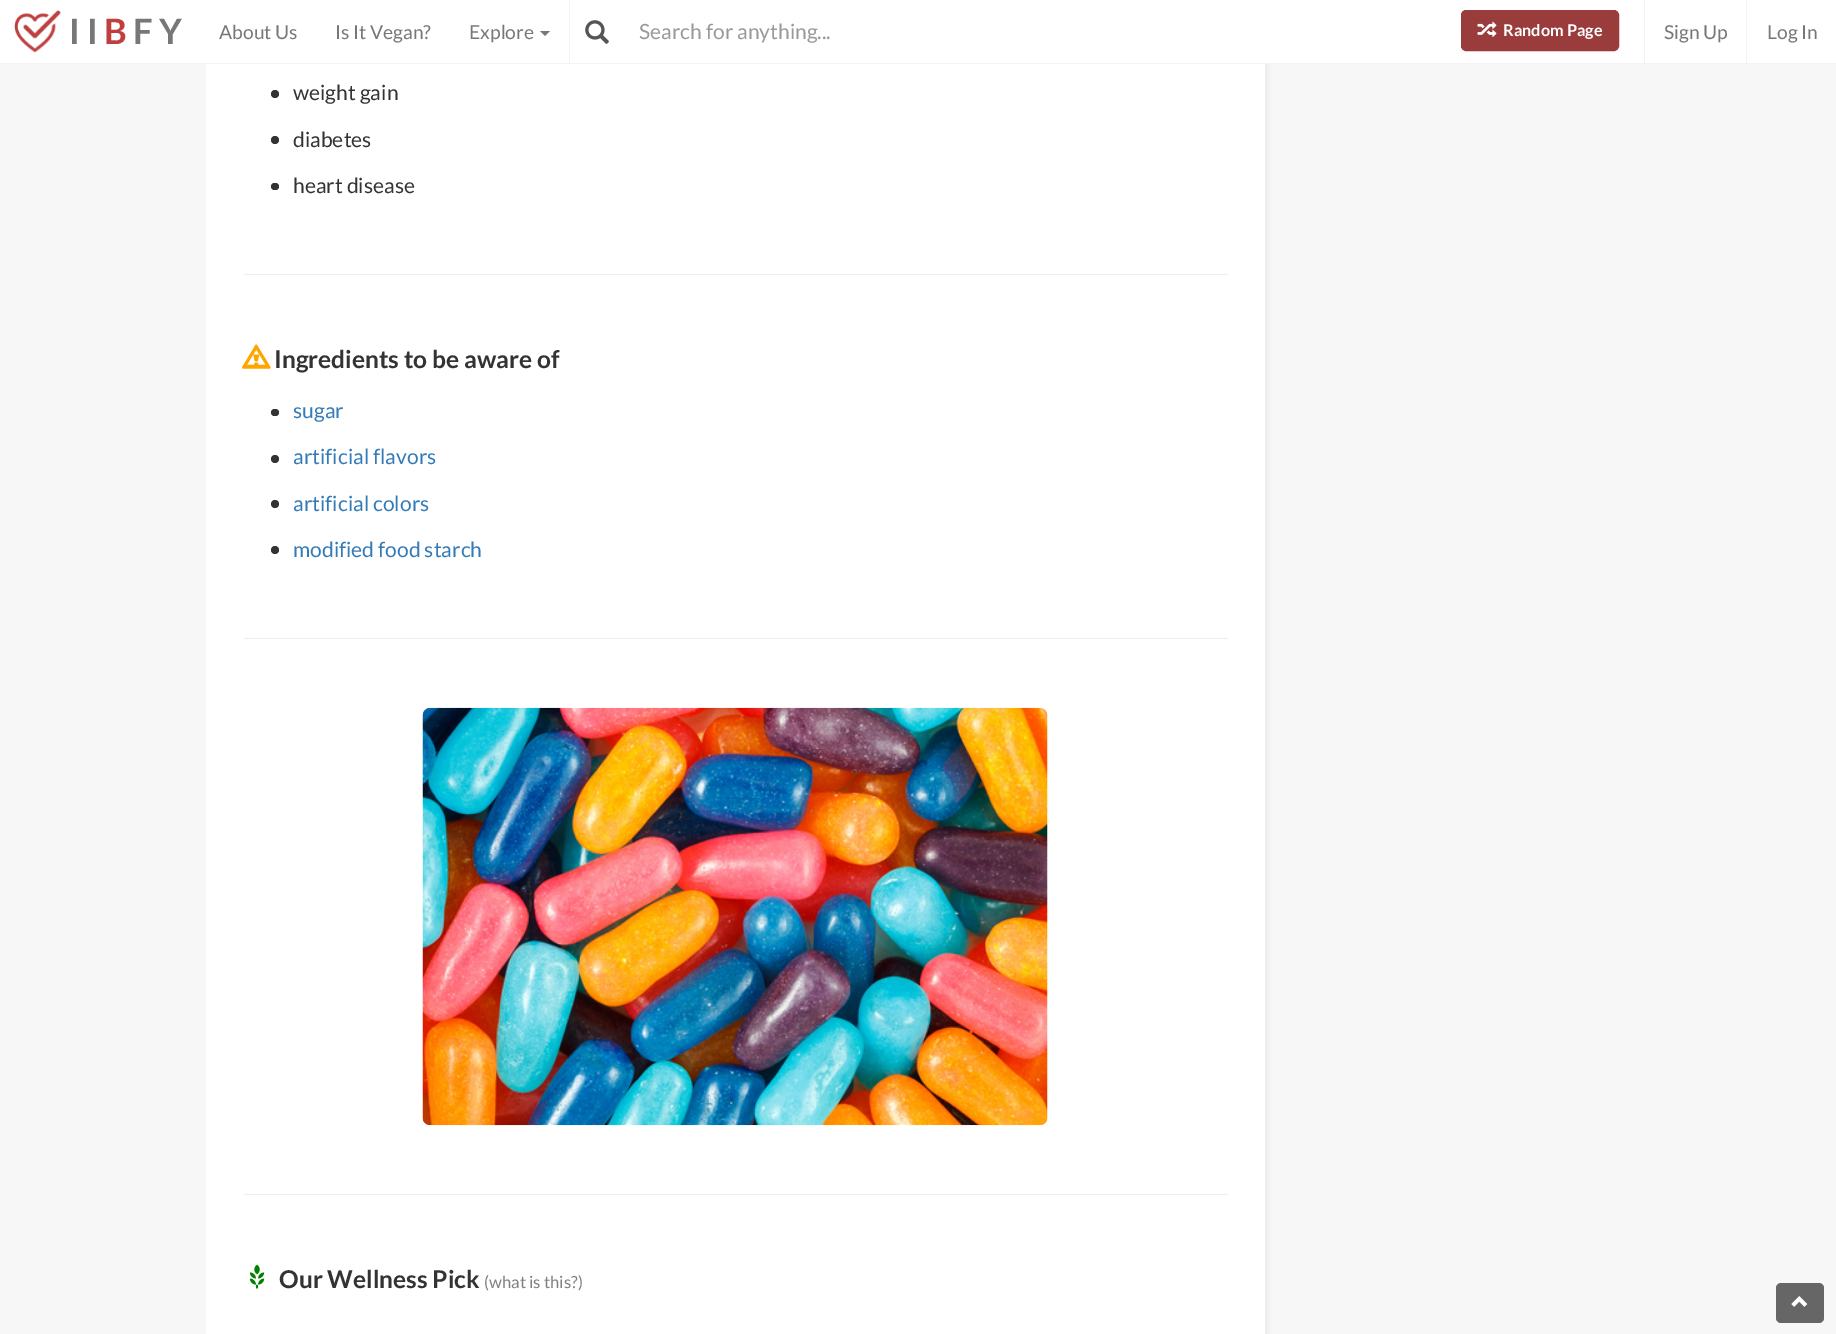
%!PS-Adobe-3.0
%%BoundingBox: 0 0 1836 1334
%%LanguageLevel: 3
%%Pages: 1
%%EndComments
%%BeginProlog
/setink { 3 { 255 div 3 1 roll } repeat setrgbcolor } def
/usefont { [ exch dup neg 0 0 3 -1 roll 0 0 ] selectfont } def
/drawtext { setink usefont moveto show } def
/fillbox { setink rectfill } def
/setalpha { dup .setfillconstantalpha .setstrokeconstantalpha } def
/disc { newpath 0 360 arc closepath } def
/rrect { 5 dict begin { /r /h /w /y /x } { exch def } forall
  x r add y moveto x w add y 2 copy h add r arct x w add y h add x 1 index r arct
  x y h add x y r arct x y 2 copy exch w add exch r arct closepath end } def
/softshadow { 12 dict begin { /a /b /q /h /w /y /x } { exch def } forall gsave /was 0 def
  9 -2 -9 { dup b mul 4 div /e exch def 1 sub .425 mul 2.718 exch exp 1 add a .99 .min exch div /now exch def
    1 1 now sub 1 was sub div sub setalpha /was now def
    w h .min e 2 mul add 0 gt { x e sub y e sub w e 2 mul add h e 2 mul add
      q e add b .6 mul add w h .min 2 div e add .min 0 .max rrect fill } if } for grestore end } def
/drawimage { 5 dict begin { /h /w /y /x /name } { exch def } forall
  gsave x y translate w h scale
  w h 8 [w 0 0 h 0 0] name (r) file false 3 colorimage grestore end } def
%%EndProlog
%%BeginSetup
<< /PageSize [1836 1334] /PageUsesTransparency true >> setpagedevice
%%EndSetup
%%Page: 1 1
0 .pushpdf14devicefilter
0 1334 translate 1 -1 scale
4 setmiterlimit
0 0 1836 1334 247 247 247 fillbox
0 0 0 setink
209 -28 1059 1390 19 3 0.05 softshadow
0 0 1836 63 255 255 255 fillbox
0 63 1836 1 243 243 243 fillbox
(assets/img1.rgb) 14 10 47 43 drawimage
(I I) 69 44 /Lato-Bold 35 119 119 119 drawtext
(B) 104 44 /Lato-Bold 35 191 63 63 drawtext
(F Y) 133 44 /Lato-Bold 35 119 119 119 drawtext
(About Us) 219 39 /Lato-Regular 19.25 119 119 119 drawtext
(Is It Vegan?) 335 39 /Lato-Regular 19.25 119 119 119 drawtext
(Explore) 469 39 /Lato-Regular 19.25 119 119 119 drawtext
540 31 moveto 550 31 lineto 545 36 lineto closepath fill
569 0 1 63 243 243 243 fillbox
(assets/img2.rgb) 585 20 24 24 drawimage
(Search for anything...) 639 39 /Lato-Regular 21 153 153 153 drawtext
155 60 60 setink
1461.5 10.5 157 40 4.5 rrect gsave fill grestore
stroke
(assets/img3.rgb) 1477 21 20 17 drawimage
(Random Page) 1503 36 /Lato-Bold 16.25 255 255 255 drawtext
1644 0 1 63 243 243 243 fillbox
(Sign Up) 1664 39 /Lato-Regular 19.25 119 119 119 drawtext
1746 0 1 63 243 243 243 fillbox
(Log In) 1767 39 /Lato-Regular 19.25 119 119 119 drawtext
206 64 1059 1270 255 255 255 fillbox
51 51 51 setink
275 94 4 disc fill
(weight gain) 293 100 /Lato-Regular 21 51 51 51 drawtext
275 140 4 disc fill
(diabetes) 293 147 /Lato-Regular 21 51 51 51 drawtext
271 183 8 7 3.5 rrect fill
(heart disease) 293 193 /Lato-Regular 21 51 51 51 drawtext
244 274 984 1 238 238 238 fillbox
(assets/img4.rgb) 242 344 29 25 drawimage
(Ingredients to be aware of) 274 368 /Lato-Bold 24.5 51 51 51 drawtext
271 409 8 7 3.5 rrect fill
(sugar) 293 418 /Lato-Regular 21 51 122 183 drawtext
51 51 51 setink
275 459 4 disc fill
(artificial flavors) 293 464 /Lato-Regular 21 51 122 183 drawtext
51 51 51 setink
275 504 4 disc fill
(artificial colors) 293 511 /Lato-Regular 21 51 122 183 drawtext
51 51 51 setink
275 550 4 disc fill
(modified food starch) 293 557 /Lato-Regular 21 51 122 183 drawtext
244 638 984 1 238 238 238 fillbox
(assets/img5.rgb) 422 707 626 419 drawimage
244 1194 984 1 238 238 238 fillbox
(assets/img6.rgb) 249 1264 16 25 drawimage
(Our Wellness Pick) 279 1288 /Lato-Bold 24.5 51 51 51 drawtext
(\(what is this?\)) 484 1288 /Lato-Regular 16.75 128 128 128 drawtext
102 102 102 setink
1776 1283 48 40 5 rrect fill
(assets/img7.rgb) 1791 1296 17 11 drawimage
.poppdf14devicefilter showpage
%%EOF
